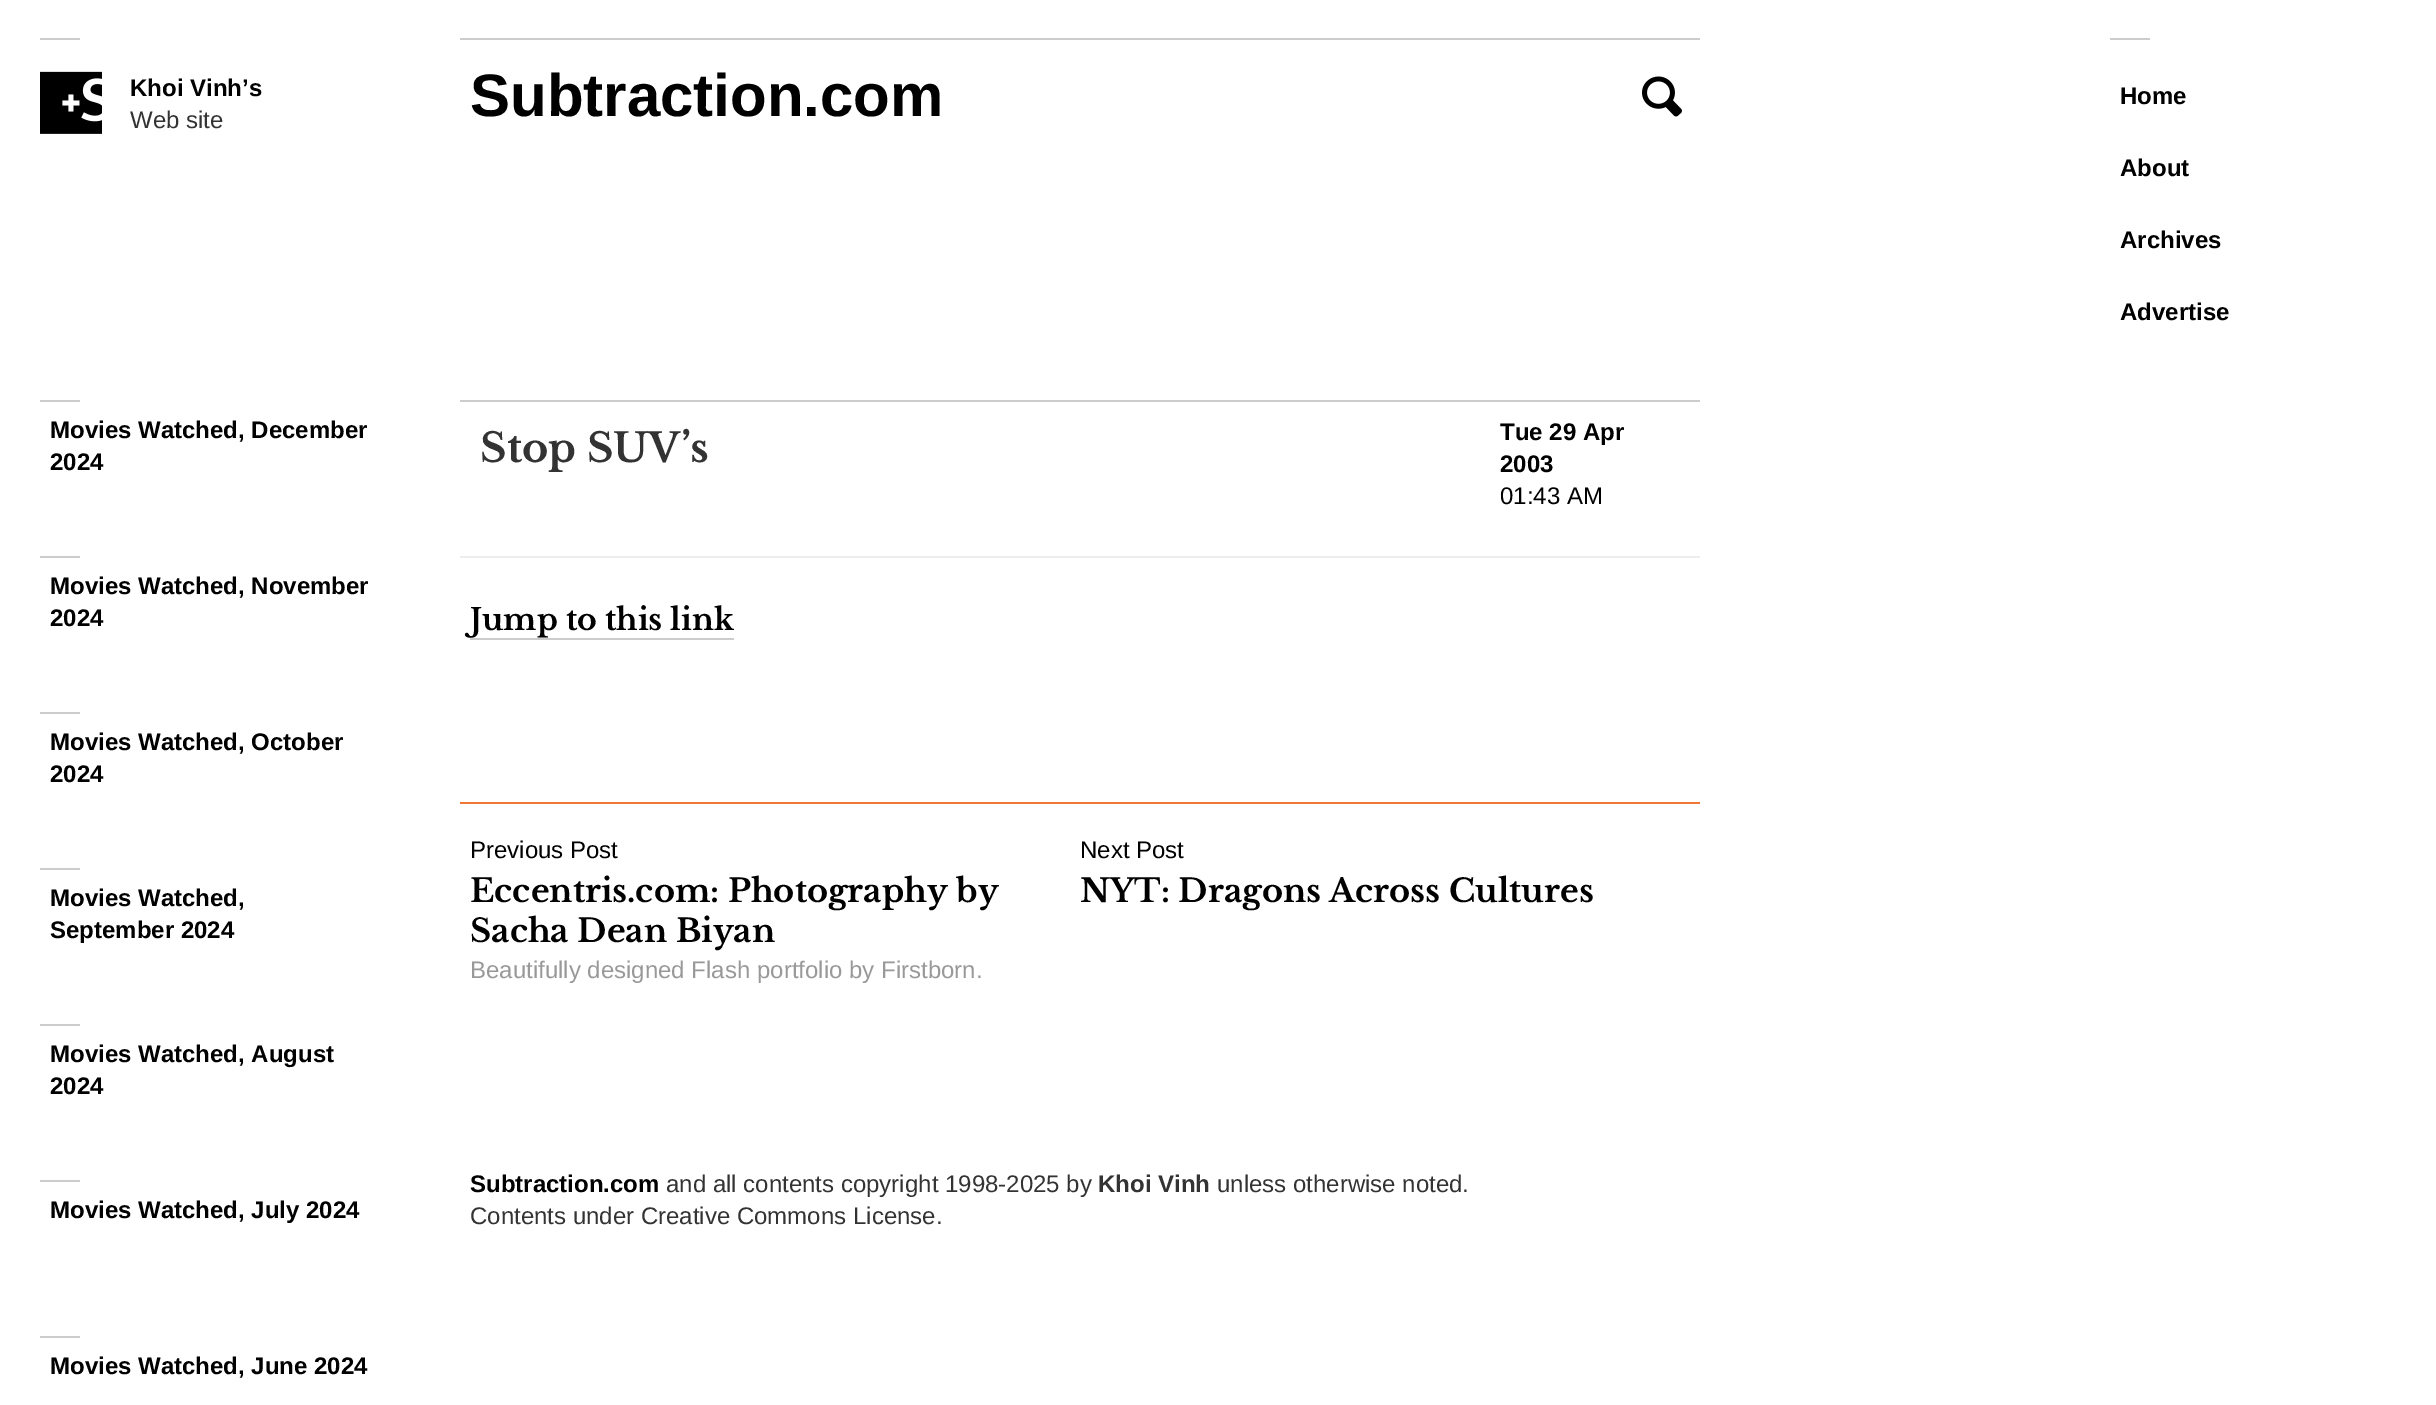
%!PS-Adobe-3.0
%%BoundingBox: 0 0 2436 1405
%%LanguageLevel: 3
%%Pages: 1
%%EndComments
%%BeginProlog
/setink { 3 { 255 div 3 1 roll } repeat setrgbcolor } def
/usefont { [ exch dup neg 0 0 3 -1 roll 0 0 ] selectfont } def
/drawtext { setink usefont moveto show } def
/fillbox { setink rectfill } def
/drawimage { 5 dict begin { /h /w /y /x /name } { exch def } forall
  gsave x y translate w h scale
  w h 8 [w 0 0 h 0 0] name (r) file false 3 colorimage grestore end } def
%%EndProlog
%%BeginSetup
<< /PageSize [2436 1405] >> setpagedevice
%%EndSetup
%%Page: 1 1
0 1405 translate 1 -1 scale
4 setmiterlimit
0 0 2436 1405 255 255 255 fillbox
40 38 40 2 204 204 204 fillbox
(assets/img1.rgb) 40 71 62 63 drawimage
(Khoi Vinh’s) 130 96 /LiberationSans-Bold 24 0 0 0 drawtext
(Web site) 130 128 /LiberationSans-Regular 24 51 51 51 drawtext
40 400 40 2 204 204 204 fillbox
(Movies Watched, December) 50 438 /LiberationSans-Bold 24 0 0 0 drawtext
(2024) 50 470 /LiberationSans-Bold 24 0 0 0 drawtext
40 556 40 2 204 204 204 fillbox
(Movies Watched, November) 50 594 /LiberationSans-Bold 24 0 0 0 drawtext
(2024) 50 626 /LiberationSans-Bold 24 0 0 0 drawtext
40 712 40 2 204 204 204 fillbox
(Movies Watched, October) 50 750 /LiberationSans-Bold 24 0 0 0 drawtext
(2024) 50 782 /LiberationSans-Bold 24 0 0 0 drawtext
40 868 40 2 204 204 204 fillbox
(Movies Watched,) 50 906 /LiberationSans-Bold 24 0 0 0 drawtext
(September 2024) 50 938 /LiberationSans-Bold 24 0 0 0 drawtext
40 1024 40 2 204 204 204 fillbox
(Movies Watched, August) 50 1062 /LiberationSans-Bold 24 0 0 0 drawtext
(2024) 50 1094 /LiberationSans-Bold 24 0 0 0 drawtext
40 1180 40 2 204 204 204 fillbox
(Movies Watched, July 2024) 50 1218 /LiberationSans-Bold 24 0 0 0 drawtext
40 1336 40 2 204 204 204 fillbox
(Movies Watched, June 2024) 50 1374 /LiberationSans-Bold 24 0 0 0 drawtext
460 38 1240 2 204 204 204 fillbox
(Subtraction.com) 470 116 /LiberationSans-Bold 60 0 0 0 drawtext
(assets/img2.rgb) 1642 76 40 41 drawimage
2110 38 40 2 204 204 204 fillbox
(Home) 2120 104 /LiberationSans-Bold 24 0 0 0 drawtext
(About) 2120 176 /LiberationSans-Bold 24 0 0 0 drawtext
(Archives) 2120 248 /LiberationSans-Bold 24 0 0 0 drawtext
(Advertise) 2120 320 /LiberationSans-Bold 24 0 0 0 drawtext
460 400 1240 2 204 204 204 fillbox
460 556 1240 2 237 237 237 fillbox
(Stop SUV’s) 480 462 /LibreBaskerville-Bold 40 51 51 51 drawtext
(Tue 29 Apr) 1500 440 /LiberationSans-Bold 24 0 0 0 drawtext
(2003) 1500 472 /LiberationSans-Bold 24 0 0 0 drawtext
(01:43 AM) 1500 504 /LiberationSans-Regular 24 0 0 0 drawtext
(Jump to this link) 470 630 /LibreBaskerville-Bold 30 0 0 0 drawtext
470 638 264 2 204 204 204 fillbox
460 802 1240 2 240 120 52 fillbox
(Previous Post) 470 858 /LiberationSans-Regular 24 0 0 0 drawtext
(Eccentris.com: Photography by) 470 902 /LibreBaskerville-Bold 32 0 0 0 drawtext
(Sacha Dean Biyan) 470 942 /LibreBaskerville-Bold 32 0 0 0 drawtext
(Beautifully designed Flash portfolio by Firstborn.) 470 978 /LiberationSans-Regular 24 153 153 153 drawtext
(Next Post) 1080 858 /LiberationSans-Regular 24 0 0 0 drawtext
(NYT: Dragons Across Cultures) 1080 902 /LibreBaskerville-Bold 32 0 0 0 drawtext
(Subtraction.com) 470 1192 /LiberationSans-Bold 24 0 0 0 drawtext
(and all contents copyright 1998-2025 by) 666 1192 /LiberationSans-Regular 24 51 51 51 drawtext
(Khoi Vinh) 1098 1192 /LiberationSans-Bold 24 51 51 51 drawtext
(unless otherwise noted.) 1217 1192 /LiberationSans-Regular 24 51 51 51 drawtext
(Contents under Creative Commons License.) 470 1224 /LiberationSans-Regular 24 51 51 51 drawtext
showpage
%%EOF
